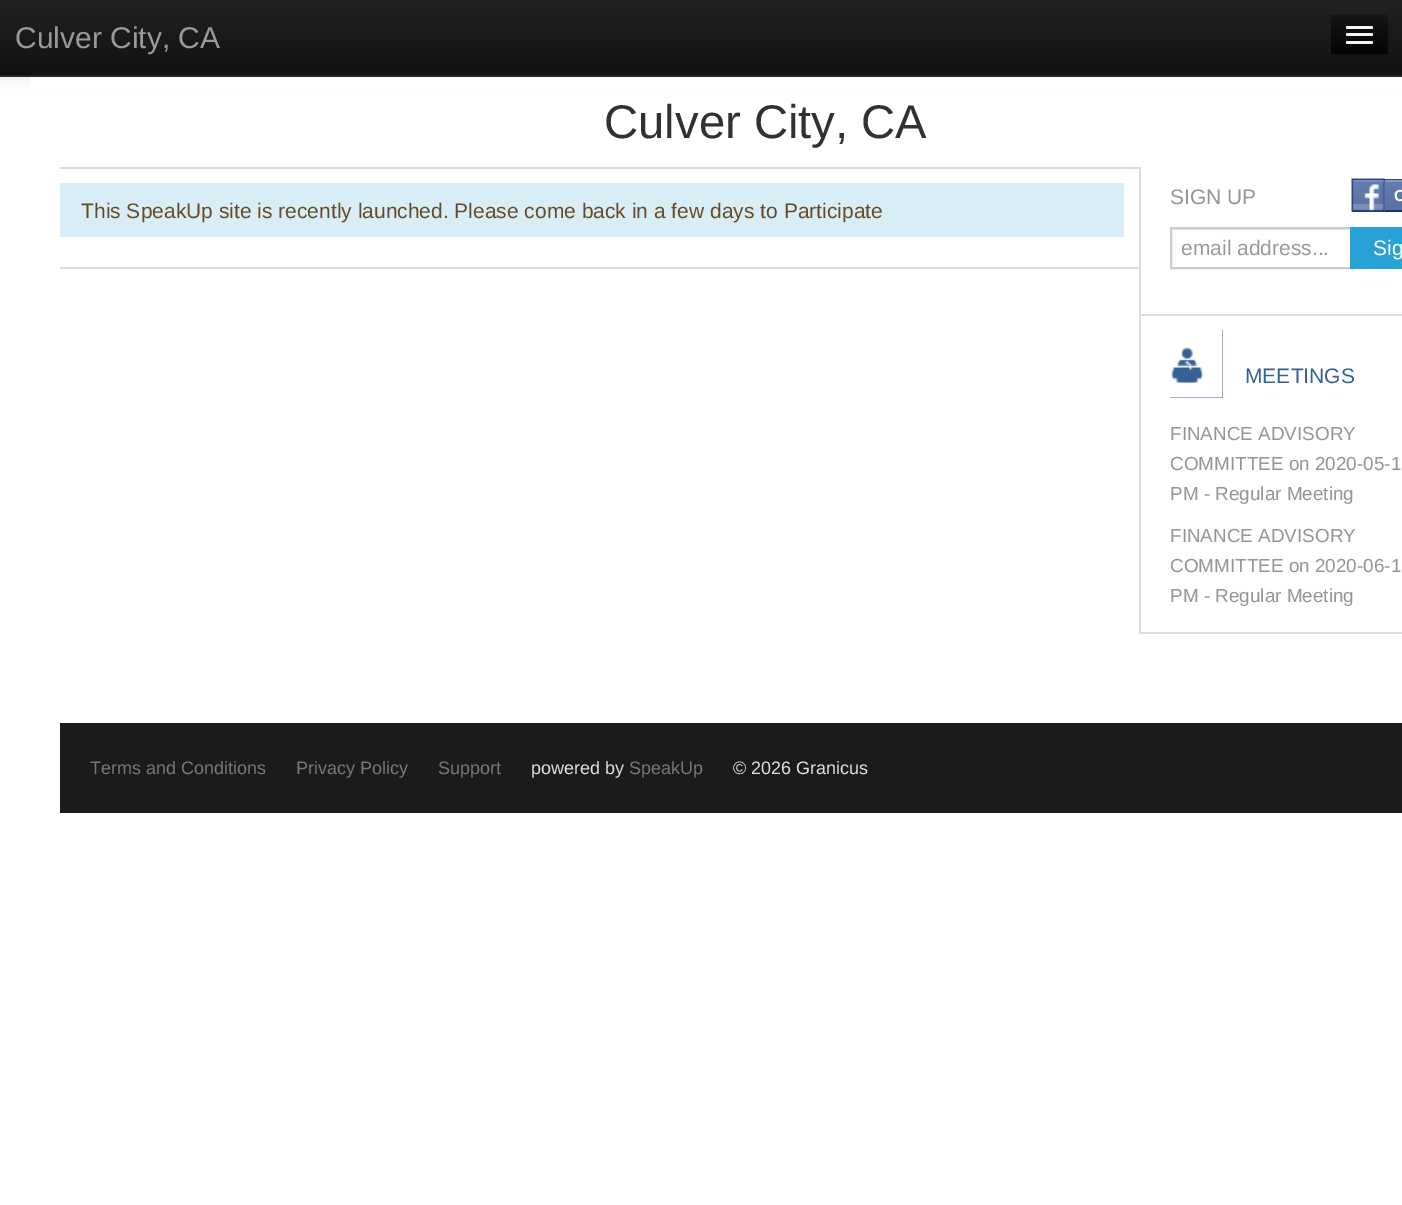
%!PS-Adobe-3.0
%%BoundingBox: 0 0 1402 1205
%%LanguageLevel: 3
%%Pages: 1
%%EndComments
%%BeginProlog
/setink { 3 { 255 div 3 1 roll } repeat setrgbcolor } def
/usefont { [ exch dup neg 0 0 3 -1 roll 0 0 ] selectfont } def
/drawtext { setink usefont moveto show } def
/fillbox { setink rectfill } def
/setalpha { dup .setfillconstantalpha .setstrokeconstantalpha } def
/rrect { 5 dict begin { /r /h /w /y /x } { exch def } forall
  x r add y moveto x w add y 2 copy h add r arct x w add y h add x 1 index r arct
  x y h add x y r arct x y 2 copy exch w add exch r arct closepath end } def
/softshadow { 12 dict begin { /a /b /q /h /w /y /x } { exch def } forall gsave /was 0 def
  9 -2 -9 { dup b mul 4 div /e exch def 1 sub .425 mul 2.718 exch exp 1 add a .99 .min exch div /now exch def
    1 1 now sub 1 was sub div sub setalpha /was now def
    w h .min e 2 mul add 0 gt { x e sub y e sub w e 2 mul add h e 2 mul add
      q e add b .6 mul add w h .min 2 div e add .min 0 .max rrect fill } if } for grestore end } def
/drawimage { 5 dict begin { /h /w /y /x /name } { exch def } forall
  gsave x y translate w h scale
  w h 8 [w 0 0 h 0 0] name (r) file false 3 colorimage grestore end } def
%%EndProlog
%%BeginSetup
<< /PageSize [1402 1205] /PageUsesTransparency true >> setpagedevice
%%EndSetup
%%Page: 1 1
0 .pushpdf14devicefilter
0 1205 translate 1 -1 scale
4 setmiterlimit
0 0 1402 1205 255 255 255 fillbox
0 0 0 setink
0 2 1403 76 0 7.5 0.1 softshadow
gsave 0 0 moveto 1402 0 lineto 1402 75 lineto 0 75 lineto closepath clip newpath
<< /ShadingType 2 /ColorSpace /DeviceRGB /Coords [701 0 701 75] /Extend [true true] /Function << /FunctionType 2 /Domain [0 1] /C0 [0.133 0.133 0.133] /C1 [0.067 0.067 0.067] /N 1 >> >> shfill grestore
0 75 1402 2 37 37 37 fillbox
(Culver City, CA) 15 48 /LiberationSans-Regular 30 153 153 153 drawtext
gsave 1331 15 moveto 1388 15 lineto 1388 54 lineto 1331 54 lineto closepath clip newpath
<< /ShadingType 2 /ColorSpace /DeviceRGB /Coords [1359 15 1359 54] /Extend [true true] /Function << /FunctionType 2 /Domain [0 1] /C0 [0.082 0.082 0.082] /C1 [0.016 0.016 0.016] /N 1 >> >> shfill grestore
11 11 11 setink
1346 28 moveto 1345.5 31 1351 30 1351.5 30 curveto 1371.5 30 lineto 1373 30 1373.5 28 1372.5 27.5 curveto 1371.5 28.5 lineto 1370 29 1346.5 28.5 1346 28 curveto closepath fill
245 245 245 setink
1346 26 27 3 1.5 rrect fill
9 9 9 setink
1346 36 moveto 1344.5 39 1351.5 38 1351.5 38 curveto 1372 38 lineto 1373 37.5 1373.5 36 1372.5 35 curveto 1371 36 lineto 1369 36.5 1347 36.5 1346 36 curveto closepath fill
245 245 245 setink
1346 33 27 3 1.5 rrect fill
6 6 6 setink
1346 43 moveto 1345.5 46 1351 45 1351.5 45 curveto 1371.5 45 lineto 1373 45 1373.5 43 1372.5 42.5 curveto 1371.5 43.5 lineto 1370 44 1346.5 43.5 1346 43 curveto closepath fill
245 245 245 setink
1346 41 27 3 1.5 rrect fill
30 77 1372 11 255 255 255 fillbox
(Culver City, CA) 604 138 /LiberationSans-Regular 47.25 49 49 49 drawtext
60 167 1080 2 221 221 221 fillbox
1139 167 2 30 221 221 221 fillbox
60 267 1080 2 221 221 221 fillbox
60 183 1064 54 217 237 247 fillbox
(This SpeakUp site is recently launched. Please come back in a few days to Participate) 81 218 /LiberationSans-Regular 21 100 77 38 drawtext
1139 632 263 2 221 221 221 fillbox
1139 197 2 436 221 221 221 fillbox
(SIGN UP) 1170 204 /LiberationSans-Regular 21 147 149 152 drawtext
1352 179 50 33 41 68 126 fillbox
(assets/img1.rgb) 1351 178 34 34 drawimage
(assets/img2.rgb) 1384 180 18 32 drawimage
1385 180 17 2 135 154 192 fillbox
1385 210 17 2 26 53 110 fillbox
(C) 1394 201 /LiberationSans-Bold 16 255 255 255 drawtext
1172 229 178 1 236 236 236 fillbox
204 204 204 setink
2 setlinewidth
1171 228 180 40 rectstroke
(email address...) 1181 255 /LiberationSans-Regular 21 153 153 153 drawtext
1350 227 52 42 40 162 213 fillbox
(Sig) 1373 255 /LiberationSans-Regular 21 255 255 255 drawtext
1140 314 262 2 221 221 221 fillbox
1170 330 53 68 54 97 148 fillbox
(assets/img3.rgb) 1170 330 53 68 drawimage
(MEETINGS) 1245 383 /LiberationSans-Regular 21 54 97 148 drawtext
(FINANCE ADVISORY) 1170 440 /LiberationSans-Regular 18.9 147 149 152 drawtext
(COMMITTEE on 2020-05-1) 1170 470 /LiberationSans-Regular 18.9 147 149 152 drawtext
(PM - Regular Meeting) 1170 500 /LiberationSans-Regular 18.9 147 149 152 drawtext
(FINANCE ADVISORY) 1170 542 /LiberationSans-Regular 18.9 147 149 152 drawtext
(COMMITTEE on 2020-06-1) 1170 572 /LiberationSans-Regular 18.9 147 149 152 drawtext
(PM - Regular Meeting) 1170 602 /LiberationSans-Regular 18.9 147 149 152 drawtext
60 723 1342 90 27 27 27 fillbox
(Terms and Conditions) 90 774 /LiberationSans-Regular 18 119 119 119 drawtext
(Privacy Policy) 296 774 /LiberationSans-Regular 18 119 119 119 drawtext
(Support) 438 774 /LiberationSans-Regular 18 119 119 119 drawtext
(powered by) 531 774 /LiberationSans-Regular 18 222 223 224 drawtext
(SpeakUp) 629 774 /LiberationSans-Regular 18 119 119 119 drawtext
(© 2026 Granicus) 733 774 /LiberationSans-Regular 18 222 223 224 drawtext
.poppdf14devicefilter showpage
%%EOF
